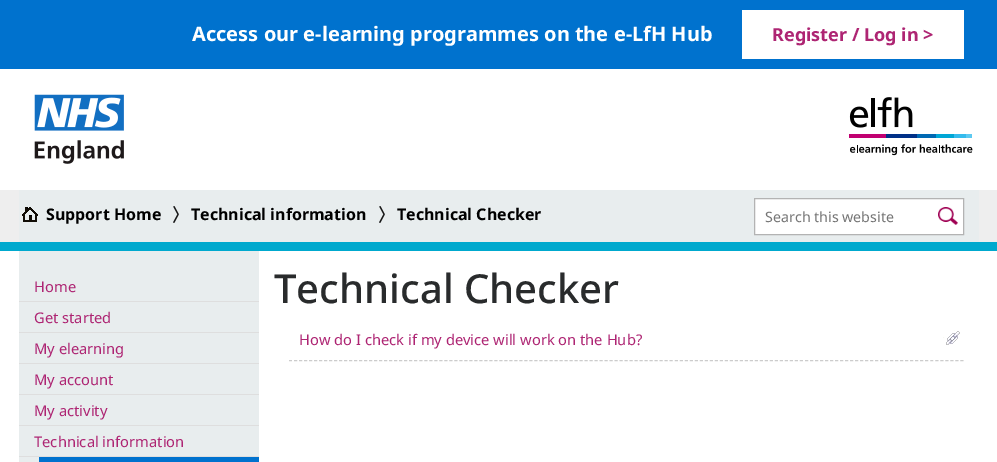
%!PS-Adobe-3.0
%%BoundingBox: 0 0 997 462
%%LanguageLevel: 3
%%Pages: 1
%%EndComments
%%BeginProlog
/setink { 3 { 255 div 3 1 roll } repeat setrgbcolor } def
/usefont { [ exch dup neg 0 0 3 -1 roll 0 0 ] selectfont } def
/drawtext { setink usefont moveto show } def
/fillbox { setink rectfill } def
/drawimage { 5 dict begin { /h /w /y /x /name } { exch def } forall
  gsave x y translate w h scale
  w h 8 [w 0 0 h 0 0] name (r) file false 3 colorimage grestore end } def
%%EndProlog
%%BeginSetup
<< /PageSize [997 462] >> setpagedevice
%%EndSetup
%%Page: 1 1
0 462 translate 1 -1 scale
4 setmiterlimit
0 0 997 462 255 255 255 fillbox
0 0 997 69 0 114 206 fillbox
(Access our e-learning programmes on the e-LfH Hub) 192 41 /NotoSans-Bold 20 255 255 255 drawtext
742 10 222 49 255 255 255 fillbox
(Register / Log in >) 772 41 /NotoSans-Bold 18 174 37 115 drawtext
(assets/img1.rgb) 34 94 90 70 drawimage
(assets/img2.rgb) 849 97 124 59 drawimage
0 190 997 52 238 238 238 fillbox
0 242 997 9 0 169 206 fillbox
19 190 960 52 232 237 238 fillbox
(assets/img3.rgb) 22 207 16 15 drawimage
(Support Home) 46 220 /NotoSans-Bold 16 0 0 0 drawtext
(assets/img4.rgb) 173 206 6 17 drawimage
(Technical information) 191 220 /NotoSans-Bold 16 0 0 0 drawtext
(assets/img4.rgb) 379 206 6 17 drawimage
(Technical Checker) 397 220 /NotoSans-Bold 16 0 0 0 drawtext
255 255 255 setink
754.5 198.5 moveto 963.5 198.5 lineto 963.5 234.5 lineto 754.5 234.5 lineto closepath gsave fill grestore
179 179 179 setink
stroke
(Search this website) 765 222 /NotoSans-Regular 14.25 117 117 117 drawtext
(assets/img5.rgb) 938 207 20 18 drawimage
19 251 240 211 232 237 238 fillbox
19 301 240 1 222 222 222 fillbox
(Home) 34 292 /NotoSans-Regular 14.7 174 37 115 drawtext
19 332 240 1 222 222 222 fillbox
(Get started) 34 323 /NotoSans-Regular 14.7 174 37 115 drawtext
19 363 240 1 222 222 222 fillbox
(My elearning) 34 354 /NotoSans-Regular 14.7 174 37 115 drawtext
19 394 240 1 222 222 222 fillbox
(My account) 34 385 /NotoSans-Regular 14.7 174 37 115 drawtext
19 425 240 1 222 222 222 fillbox
(My activity) 34 416 /NotoSans-Regular 14.7 174 37 115 drawtext
19 456 240 1 222 222 222 fillbox
(Technical information) 34 447 /NotoSans-Regular 14.7 174 37 115 drawtext
39 457 220 5 0 114 206 fillbox
(Technical Checker) 274 303 /NotoSans-Medium 40 41 43 44 drawtext
204 204 204 setink
[3 2.01] 0 setdash
289 360.5 moveto 964 360.5 lineto stroke
(How do I check if my device will work on the Hub?) 299 345 /NotoSans-Regular 14.7 174 37 115 drawtext
(assets/img6.rgb) 943 330 17 15 drawimage
showpage
%%EOF
